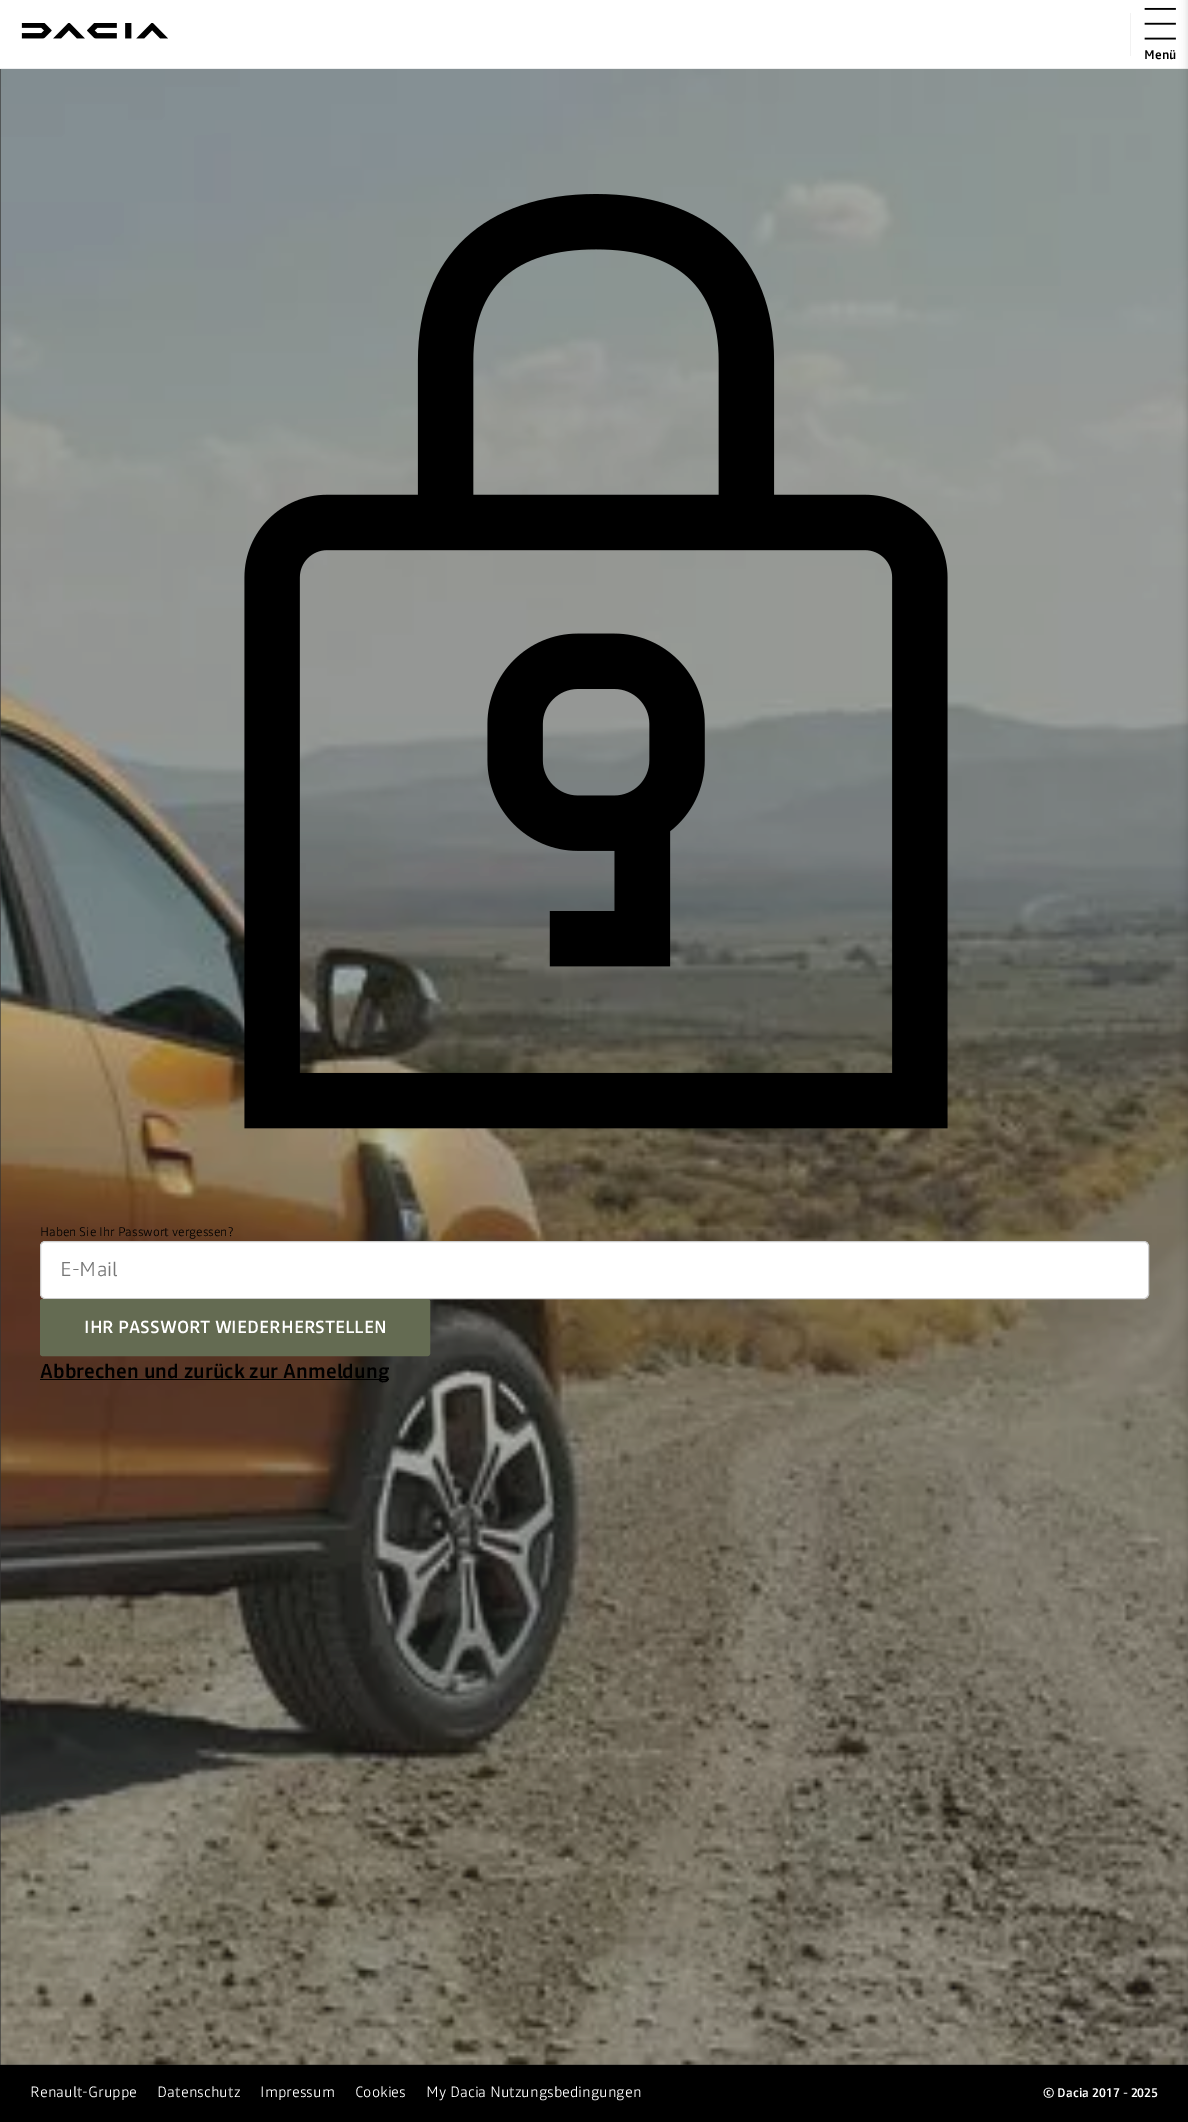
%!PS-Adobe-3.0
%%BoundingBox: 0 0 1188 2122
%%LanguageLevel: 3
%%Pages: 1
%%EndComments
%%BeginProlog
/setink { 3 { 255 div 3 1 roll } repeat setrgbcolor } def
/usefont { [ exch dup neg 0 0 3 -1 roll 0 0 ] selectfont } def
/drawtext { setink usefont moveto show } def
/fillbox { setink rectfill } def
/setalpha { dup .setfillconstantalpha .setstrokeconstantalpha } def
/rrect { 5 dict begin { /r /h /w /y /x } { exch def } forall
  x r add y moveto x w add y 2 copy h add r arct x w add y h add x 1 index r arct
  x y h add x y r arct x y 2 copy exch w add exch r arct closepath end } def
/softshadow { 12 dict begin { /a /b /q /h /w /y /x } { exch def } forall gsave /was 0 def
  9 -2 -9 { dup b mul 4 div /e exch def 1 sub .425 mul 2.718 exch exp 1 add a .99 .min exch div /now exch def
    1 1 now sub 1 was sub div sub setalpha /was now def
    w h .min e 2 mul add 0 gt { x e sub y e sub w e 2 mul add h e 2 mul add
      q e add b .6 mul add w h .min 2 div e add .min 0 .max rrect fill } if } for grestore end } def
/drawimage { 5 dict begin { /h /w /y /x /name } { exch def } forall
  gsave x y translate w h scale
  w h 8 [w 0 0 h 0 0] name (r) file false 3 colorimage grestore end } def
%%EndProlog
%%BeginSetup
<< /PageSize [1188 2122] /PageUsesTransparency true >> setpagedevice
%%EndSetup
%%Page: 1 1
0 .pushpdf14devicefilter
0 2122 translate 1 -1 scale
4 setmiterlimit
0 0 1188 2122 255 255 255 fillbox
0 68 1188 1 242 242 242 fillbox
(assets/img1.rgb) 21 23 147 16 drawimage
1130 13 1 43 242 242 242 fillbox
(assets/img2.rgb) 1144 7 32 33 drawimage
(Menü) 1144 59 /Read-Medium 12.5 0 0 0 drawtext
0 69 1188 1996 51 51 51 fillbox
(assets/img3.rgb) 0 68 1188 1997 drawimage
0 2065 1188 57 0 0 0 fillbox
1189 -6 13 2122 0 4.5 0.2 softshadow
(assets/img4.rgb) 244 194 704 935 drawimage
(Haben Sie Ihr Passwort vergessen?) 40 1236 /Read-Light 12.5 0 0 0 drawtext
255 255 255 setink
40.5 1241.5 1108 57 4.5 rrect gsave fill grestore
204 204 204 setink
stroke
(E-Mail) 60 1276 /Read-Light 20 119 119 119 drawtext
100 107 82 setink
42 1301 386 53 0.5 rrect gsave fill grestore
4 setlinewidth
stroke
(IHR PASSWORT WIEDERHERSTELLEN) 84 1333 /Read-Medium 17.5 255 255 255 drawtext
40 1379 349 1 0 0 0 fillbox
(Abbrechen und zurück zur Anmeldung) 40 1378 /Read-Medium 20 0 0 0 drawtext
(Renault-Gruppe) 30 2097 /Read-Light 15 255 255 255 drawtext
(Datenschutz) 157 2097 /Read-Light 15 255 255 255 drawtext
(Impressum) 260 2097 /Read-Light 15 255 255 255 drawtext
(Cookies) 355 2097 /Read-Light 15 255 255 255 drawtext
(My Dacia Nutzungsbedingungen) 426 2097 /Read-Light 15 255 255 255 drawtext
(© Dacia 2017 - 2025) 1043 2097 /Read-Medium 12.5 255 255 255 drawtext
.poppdf14devicefilter showpage
%%EOF
